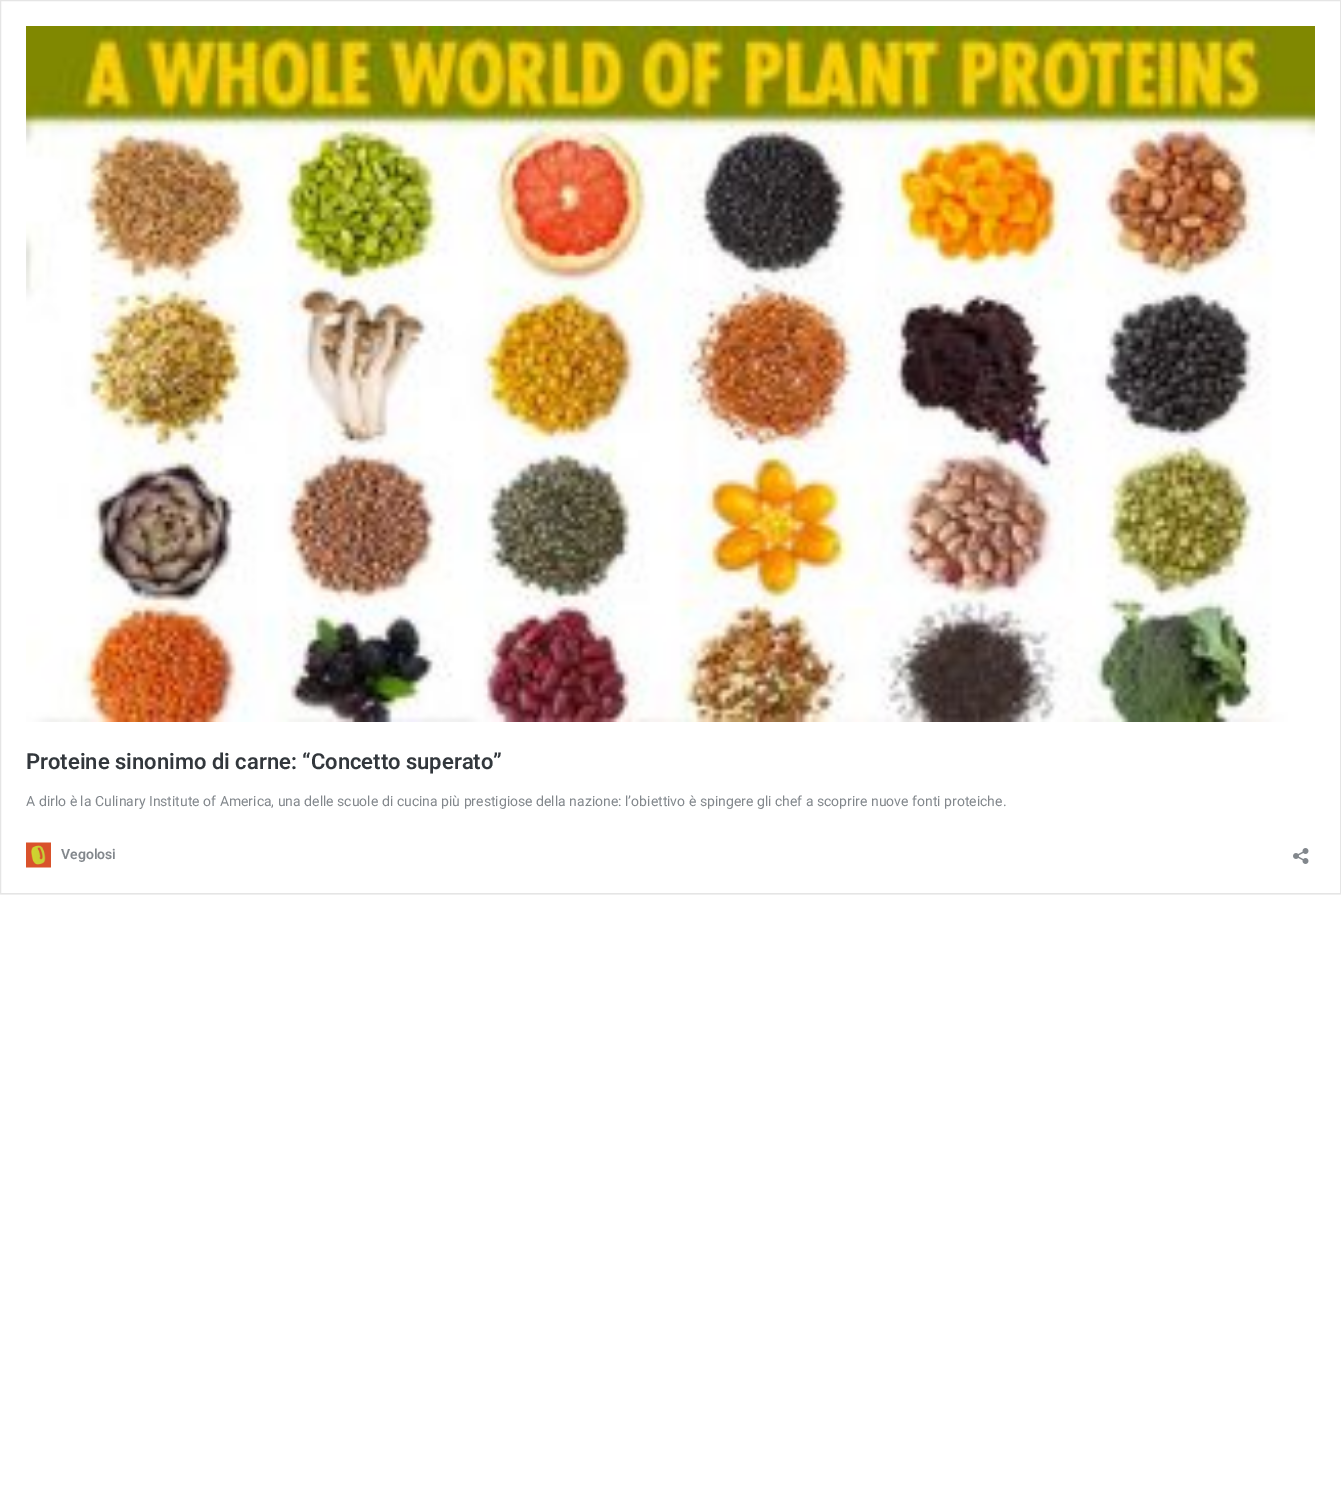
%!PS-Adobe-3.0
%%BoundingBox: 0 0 1341 1486
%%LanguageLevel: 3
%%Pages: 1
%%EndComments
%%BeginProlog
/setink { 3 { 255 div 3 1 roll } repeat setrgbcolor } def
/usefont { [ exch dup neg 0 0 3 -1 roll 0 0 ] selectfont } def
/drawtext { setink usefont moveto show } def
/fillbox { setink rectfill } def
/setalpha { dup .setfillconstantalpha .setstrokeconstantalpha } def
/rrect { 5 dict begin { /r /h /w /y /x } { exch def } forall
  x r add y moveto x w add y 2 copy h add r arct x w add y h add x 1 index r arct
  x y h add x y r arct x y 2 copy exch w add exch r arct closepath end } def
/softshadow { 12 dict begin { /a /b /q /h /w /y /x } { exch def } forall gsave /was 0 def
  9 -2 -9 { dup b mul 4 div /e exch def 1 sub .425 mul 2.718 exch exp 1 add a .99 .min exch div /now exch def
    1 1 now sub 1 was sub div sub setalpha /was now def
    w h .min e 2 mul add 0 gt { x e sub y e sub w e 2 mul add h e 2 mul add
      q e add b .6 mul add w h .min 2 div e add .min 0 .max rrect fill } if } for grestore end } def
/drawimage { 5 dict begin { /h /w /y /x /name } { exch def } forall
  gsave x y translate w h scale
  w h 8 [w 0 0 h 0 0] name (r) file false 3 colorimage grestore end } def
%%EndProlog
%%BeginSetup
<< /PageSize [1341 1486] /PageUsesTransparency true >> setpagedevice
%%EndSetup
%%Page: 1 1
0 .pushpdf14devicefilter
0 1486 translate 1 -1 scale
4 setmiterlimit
0 0 1341 1486 255 255 255 fillbox
gsave
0 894 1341 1 rectclip
0 0 0 setink
0 1 1341 894 0 0.5 0.05 softshadow
grestore
229 229 229 setink
0.5 0.5 1340 893 rectstroke
(assets/img1.rgb) 26 26 1289 696 drawimage
(Proteine sinonimo di carne: “Concetto superato”) 26 769 /Roboto-SemiBold 22 50 55 60 drawtext
(A dirlo è la Culinary Institute of America, una delle scuole di cucina più prestigiose della nazione: l’obiettivo è spingere gli chef a scoprire nuove fonti proteiche.) 26 806 /Roboto-Regular 14 130 135 140 drawtext
(assets/img2.rgb) 26 842 25 26 drawimage
(Vegolosi) 61 859 /Roboto-SemiBold 14 130 135 140 drawtext
(assets/img3.rgb) 1293 848 16 16 drawimage
.poppdf14devicefilter showpage
%%EOF
